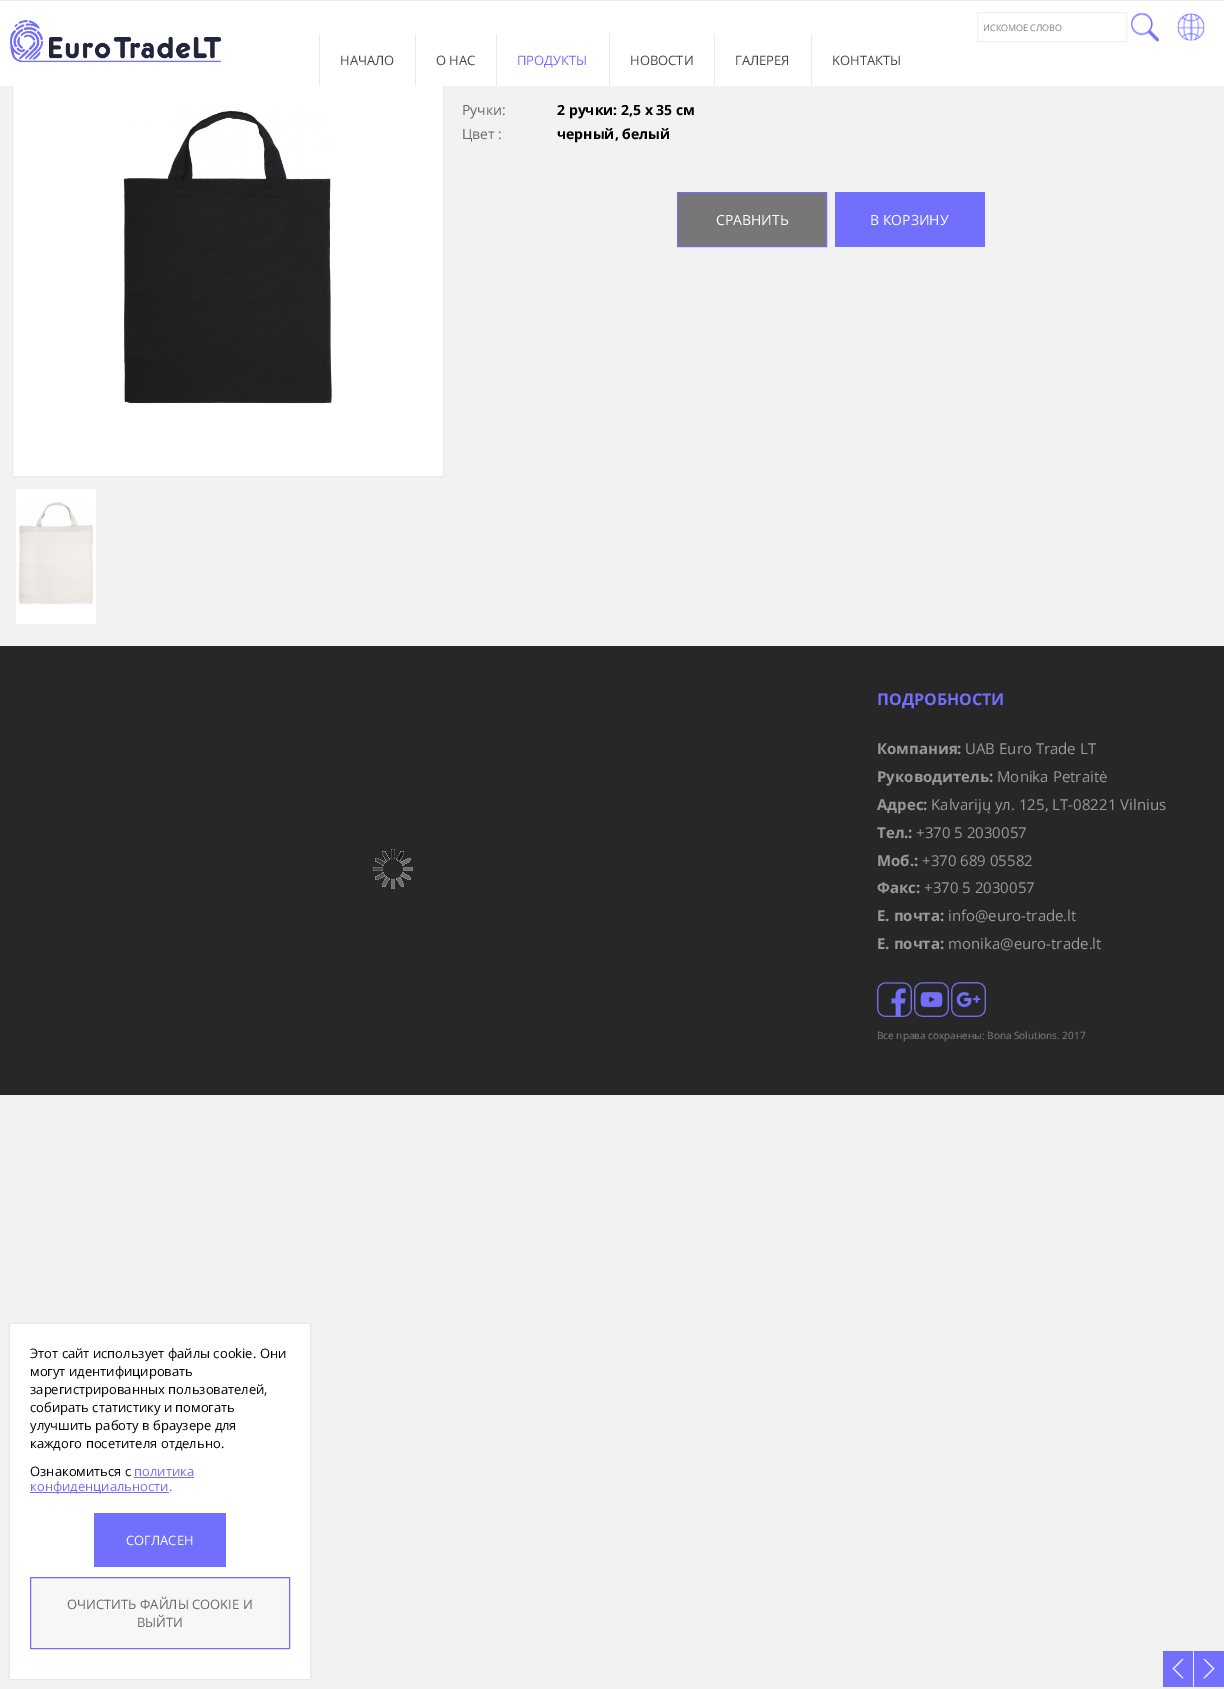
%!PS-Adobe-3.0
%%BoundingBox: 0 0 1224 1689
%%LanguageLevel: 3
%%Pages: 1
%%EndComments
%%BeginProlog
/setink { 3 { 255 div 3 1 roll } repeat setrgbcolor } def
/usefont { [ exch dup neg 0 0 3 -1 roll 0 0 ] selectfont } def
/drawtext { setink usefont moveto show } def
/fillbox { setink rectfill } def
/setalpha { dup .setfillconstantalpha .setstrokeconstantalpha } def
/rrect { 5 dict begin { /r /h /w /y /x } { exch def } forall
  x r add y moveto x w add y 2 copy h add r arct x w add y h add x 1 index r arct
  x y h add x y r arct x y 2 copy exch w add exch r arct closepath end } def
/softshadow { 12 dict begin { /a /b /q /h /w /y /x } { exch def } forall gsave /was 0 def
  9 -2 -9 { dup b mul 4 div /e exch def 1 sub .425 mul 2.718 exch exp 1 add a .99 .min exch div /now exch def
    1 1 now sub 1 was sub div sub setalpha /was now def
    w h .min e 2 mul add 0 gt { x e sub y e sub w e 2 mul add h e 2 mul add
      q e add b .6 mul add w h .min 2 div e add .min 0 .max rrect fill } if } for grestore end } def
/drawimage { 5 dict begin { /h /w /y /x /name } { exch def } forall
  gsave x y translate w h scale
  w h 8 [w 0 0 h 0 0] name (r) file false 3 colorimage grestore end } def
%%EndProlog
%%BeginSetup
<< /PageSize [1224 1689] /PageUsesTransparency true >> setpagedevice
%%EndSetup
%%Page: 1 1
0 .pushpdf14devicefilter
0 1689 translate 1 -1 scale
4 setmiterlimit
0 0 1224 1689 242 242 242 fillbox
13 86 430 390 255 255 255 fillbox
(assets/img4.rgb) 123 110 209 294 drawimage
234 234 234 setink
12.5 39.5 431 437 rectstroke
0 1 1224 85 255 255 255 fillbox
0 0 1224 1 234 234 234 fillbox
(assets/img1.rgb) 10 20 211 43 drawimage
242 242 242 setink
977.5 12.5 149 29 rectstroke
(ИСКОМОЕ СЛОВО) 983 31 /OpenSans-Regular 9 128 128 128 drawtext
(assets/img2.rgb) 1131 12 28 30 drawimage
(assets/img3.rgb) 1177 13 28 28 drawimage
319 34 1 52 234 234 234 fillbox
(НАЧАЛО) 340 65 /OpenSans-Regular 13 68 69 69 drawtext
415 34 1 52 234 234 234 fillbox
(О НАС) 436 65 /OpenSans-Regular 13 68 69 69 drawtext
496 34 1 52 234 234 234 fillbox
(ПРОДУКТЫ) 517 65 /OpenSans-Regular 13 113 111 252 drawtext
609 34 1 52 234 234 234 fillbox
(НОВОСТИ) 630 65 /OpenSans-Regular 13 68 69 69 drawtext
714 34 1 52 234 234 234 fillbox
(ГАЛЕРЕЯ) 735 65 /OpenSans-Regular 13 68 69 69 drawtext
811 34 1 52 234 234 234 fillbox
(KОНТАКТЫ) 832 65 /OpenSans-Regular 13 68 69 69 drawtext
16 489 80 135 255 255 255 fillbox
(assets/img5.rgb) 18 502 76 103 drawimage
(Ручки:) 462 115 /OpenSans-Regular 14 102 102 102 drawtext
(2 ручки: 2,5 x 35 см) 557 115 /OpenSans-Bold 14 0 0 0 drawtext
(Цвет :) 462 139 /OpenSans-Regular 14 102 102 102 drawtext
(черный, белый) 557 139 /OpenSans-Bold 14 0 0 0 drawtext
119 119 119 setink
677.5 192.5 moveto 826.5 192.5 lineto 826.5 246.5 lineto 677.5 246.5 lineto closepath gsave fill grestore
113 111 252 setink
stroke
(СРАВНИТЬ) 716 225 /OpenSans-Regular 14 255 255 255 drawtext
835 192 150 55 113 111 252 fillbox
(В КОРЗИНУ) 870 225 /OpenSans-Regular 14 255 255 255 drawtext
1163 1651 30 36 113 111 252 fillbox
(assets/img6.rgb) 1172 1658 12 21 drawimage
1194 1651 30 36 113 111 252 fillbox
(assets/img7.rgb) 1203 1658 12 21 drawimage
0 646 1224 449 39 39 39 fillbox
(assets/img8.rgb) 373 849 40 40 drawimage
(ПОДРОБНОСТИ) 877 705 /OpenSans-Bold 16 113 111 252 drawtext
(Компания) 877 754 /OpenSans-Bold 15 153 153 153 drawtext
(:) 957 754 /OpenSans-Bold 15 153 153 153 drawtext
(UAB Euro Trade LT) 965 754 /OpenSans-Regular 15 153 153 153 drawtext
(Руководитель) 877 782 /OpenSans-Bold 15 153 153 153 drawtext
(:) 989 782 /OpenSans-Bold 15 153 153 153 drawtext
(Monika Petraitė) 997 782 /OpenSans-Regular 15 153 153 153 drawtext
(Aдрес) 877 810 /OpenSans-Bold 15 153 153 153 drawtext
(:) 923 810 /OpenSans-Bold 15 153 153 153 drawtext
(Kalvarijų ул) 931 810 /OpenSans-Regular 15 153 153 153 drawtext
(. 125, LT-08221 Vilnius) 1011 810 /OpenSans-Regular 15 153 153 153 drawtext
(Tел) 877 838 /OpenSans-Bold 15 153 153 153 drawtext
(.:) 904 838 /OpenSans-Bold 15 153 153 153 drawtext
(+370 5 2030057) 916 838 /OpenSans-Regular 15 153 153 153 drawtext
(Mоб) 877 866 /OpenSans-Bold 15 153 153 153 drawtext
(.:) 910 866 /OpenSans-Bold 15 153 153 153 drawtext
(+370 689 05582) 922 866 /OpenSans-Regular 15 153 153 153 drawtext
(Ф) 877 893 /OpenSans-Bold 15 153 153 153 drawtext
(акс) 890 893 /OpenSans-Bold 15 153 153 153 drawtext
(:) 916 893 /OpenSans-Bold 15 153 153 153 drawtext
(+370 5 2030057) 924 893 /OpenSans-Regular 15 153 153 153 drawtext
(E. почта) 877 921 /OpenSans-Bold 15 153 153 153 drawtext
(:) 940 921 /OpenSans-Bold 15 153 153 153 drawtext
(info@euro-trade.lt) 948 921 /OpenSans-Regular 15 153 153 153 drawtext
(E. почта) 877 949 /OpenSans-Bold 15 153 153 153 drawtext
(:) 940 949 /OpenSans-Bold 15 153 153 153 drawtext
(monika@euro-trade.lt) 948 949 /OpenSans-Regular 15 153 153 153 drawtext
(assets/img9.rgb) 877 982 35 35 drawimage
(assets/img10.rgb) 914 982 35 35 drawimage
(assets/img11.rgb) 951 982 35 35 drawimage
(Все права сохранены) 877 1039 /OpenSans-Regular 10 128 128 128 drawtext
(: Bona Solutions. 2017) 982 1039 /OpenSans-Regular 10 128 128 128 drawtext
204 204 204 setink
10 1324 300 355 0 1 1 softshadow
10 1324 300 355 255 255 255 fillbox
(Этот сайт использует файлы cookie. Они) 30 1358 /OpenSans-Regular 13 0 0 0 drawtext
(могут идентифицировать) 30 1376 /OpenSans-Regular 13 0 0 0 drawtext
(зарегистрированных пользователей,) 30 1394 /OpenSans-Regular 13 0 0 0 drawtext
(собирать статистику и помогать) 30 1412 /OpenSans-Regular 13 0 0 0 drawtext
(улучшить работу в браузере для) 30 1430 /OpenSans-Regular 13 0 0 0 drawtext
(каждого посетителя отдельно.) 30 1448 /OpenSans-Regular 13 0 0 0 drawtext
(Ознакомиться с) 30 1476 /OpenSans-Regular 13 0 0 0 drawtext
(политика) 134 1476 /OpenSans-Regular 13 113 111 252 drawtext
134 1477 60 1 113 111 252 fillbox
30 1492 139 1 113 111 252 fillbox
(конфиденциальности.) 30 1491 /OpenSans-Regular 13 113 111 252 drawtext
94 1513 132 54 113 111 252 fillbox
(СОГЛАСЕН) 126 1545 /OpenSans-Regular 13 255 255 255 drawtext
247 247 247 setink
30.5 1577.5 moveto 289.5 1577.5 lineto 289.5 1648.5 lineto 30.5 1648.5 lineto closepath gsave fill grestore
113 111 252 setink
stroke
(ОЧИСТИТЬ ФАЙЛЫ COOKIE И) 67 1609 /OpenSans-Regular 13 102 102 102 drawtext
(ВЫЙТИ) 137 1627 /OpenSans-Regular 13 102 102 102 drawtext
.poppdf14devicefilter showpage
%%EOF
